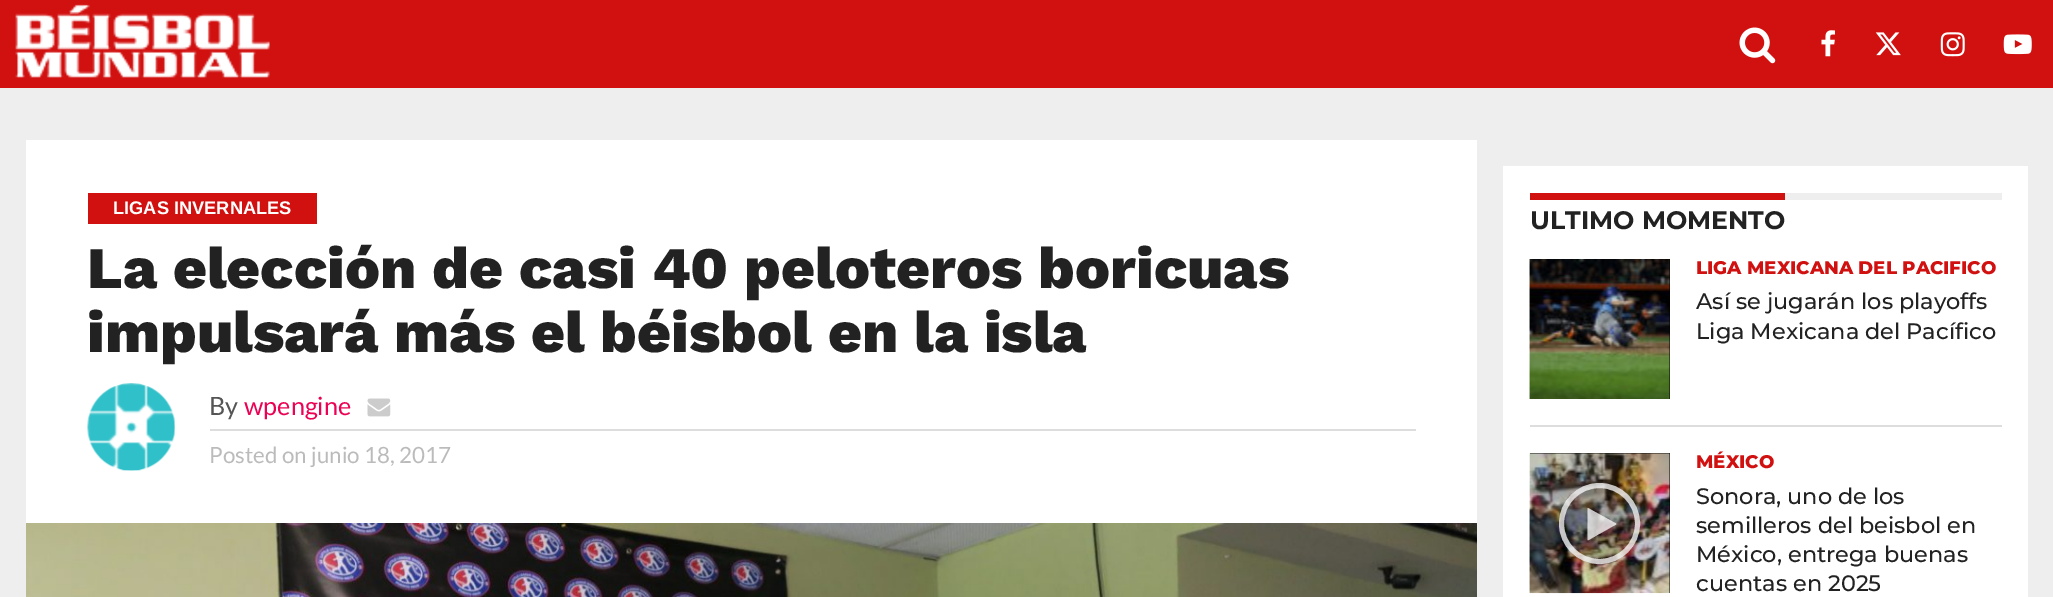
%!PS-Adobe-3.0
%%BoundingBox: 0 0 2053 597
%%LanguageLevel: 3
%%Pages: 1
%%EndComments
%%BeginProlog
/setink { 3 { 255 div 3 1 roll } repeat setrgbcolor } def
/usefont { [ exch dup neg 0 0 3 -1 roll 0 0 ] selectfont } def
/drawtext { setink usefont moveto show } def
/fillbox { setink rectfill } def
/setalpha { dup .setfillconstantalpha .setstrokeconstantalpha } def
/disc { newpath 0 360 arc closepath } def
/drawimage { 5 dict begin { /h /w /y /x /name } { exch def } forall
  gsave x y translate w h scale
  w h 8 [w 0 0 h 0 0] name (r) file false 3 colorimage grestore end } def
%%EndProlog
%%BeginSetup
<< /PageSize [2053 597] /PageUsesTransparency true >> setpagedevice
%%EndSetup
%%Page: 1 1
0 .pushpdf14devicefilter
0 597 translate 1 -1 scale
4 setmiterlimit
0 0 2053 597 238 238 238 fillbox
0 0 2053 88 209 16 16 fillbox
(assets/img1.rgb) 15 4 255 74 drawimage
(assets/img2.rgb) 1739 27 37 37 drawimage
(assets/img3.rgb) 1821 30 14 27 drawimage
(assets/img4.rgb) 1875 32 26 24 drawimage
(assets/img5.rgb) 1940 32 25 25 drawimage
(assets/img6.rgb) 2003 34 29 21 drawimage
26 140 1451 383 255 255 255 fillbox
88 193 229 31 209 16 16 fillbox
(LIGAS INVERNALES) 113 214 /LiberationSans-Bold 18.25 255 255 255 drawtext
(La elección de casi 40 peloteros boricuas) 87 288 /WorkSans-ExtraBold 58.8 34 34 34 drawtext
(impulsará más el béisbol en la isla) 87 352 /WorkSans-ExtraBold 58.8 34 34 34 drawtext
(assets/img7.rgb) 87 383 88 88 drawimage
210 429 1206 2 221 221 221 fillbox
(By) 209 415 /Lato-Regular 25.25 85 85 85 drawtext
(wpengine) 244 415 /Lato-Regular 25.25 235 2 84 drawtext
(assets/img8.rgb) 367 398 24 19 drawimage
(Posted on junio 18, 2017) 209 463 /Lato-Regular 22.4 187 187 187 drawtext
(assets/img9.rgb) 26 523 1451 74 drawimage
1503 166 525 431 255 255 255 fillbox
1785 193 217 7 238 238 238 fillbox
1530 193 255 7 209 16 16 fillbox
(ULTIMO MOMENTO) 1530 229 /Montserrat-Bold 25.25 34 34 34 drawtext
1530 259 140 140 0 0 0 fillbox
(assets/img10.rgb) 1529 259 141 140 drawimage
(LIGA MEXICANA DEL PACIFICO) 1696 274 /Montserrat-ExtraBold 18.25 209 16 16 drawtext
(Así se jugarán los playoffs) 1696 309 /Montserrat-Medium 22.4 34 34 34 drawtext
(Liga Mexicana del Pacífico) 1696 339 /Montserrat-Medium 22.4 34 34 34 drawtext
1530 425 472 2 221 221 221 fillbox
1530 453 140 140 0 0 0 fillbox
(assets/img11.rgb) 1529 453 141 141 drawimage
0.22 setalpha
1599.5 523.5 40.5 disc fill
0.75 setalpha
255 255 255 setink
5 setlinewidth
1599.5 523.5 38 disc stroke
1616 524.5 moveto 1593 537.5 lineto 1592.5 537.5 1588 541 1587.5 540 curveto 1587.5 508 lineto 1588 508 lineto 1616 523.5 lineto 1616.5 524 lineto closepath fill
1 setalpha
(MÉXICO) 1696 468 /Montserrat-ExtraBold 18.25 209 16 16 drawtext
(Sonora, uno de los) 1696 504 /Montserrat-Medium 22.4 34 34 34 drawtext
(semilleros del beisbol en) 1696 533 /Montserrat-Medium 22.4 34 34 34 drawtext
(México, entrega buenas) 1696 562 /Montserrat-Medium 22.4 34 34 34 drawtext
(cuentas en 2025) 1696 591 /Montserrat-Medium 22.4 34 34 34 drawtext
.poppdf14devicefilter showpage
%%EOF
